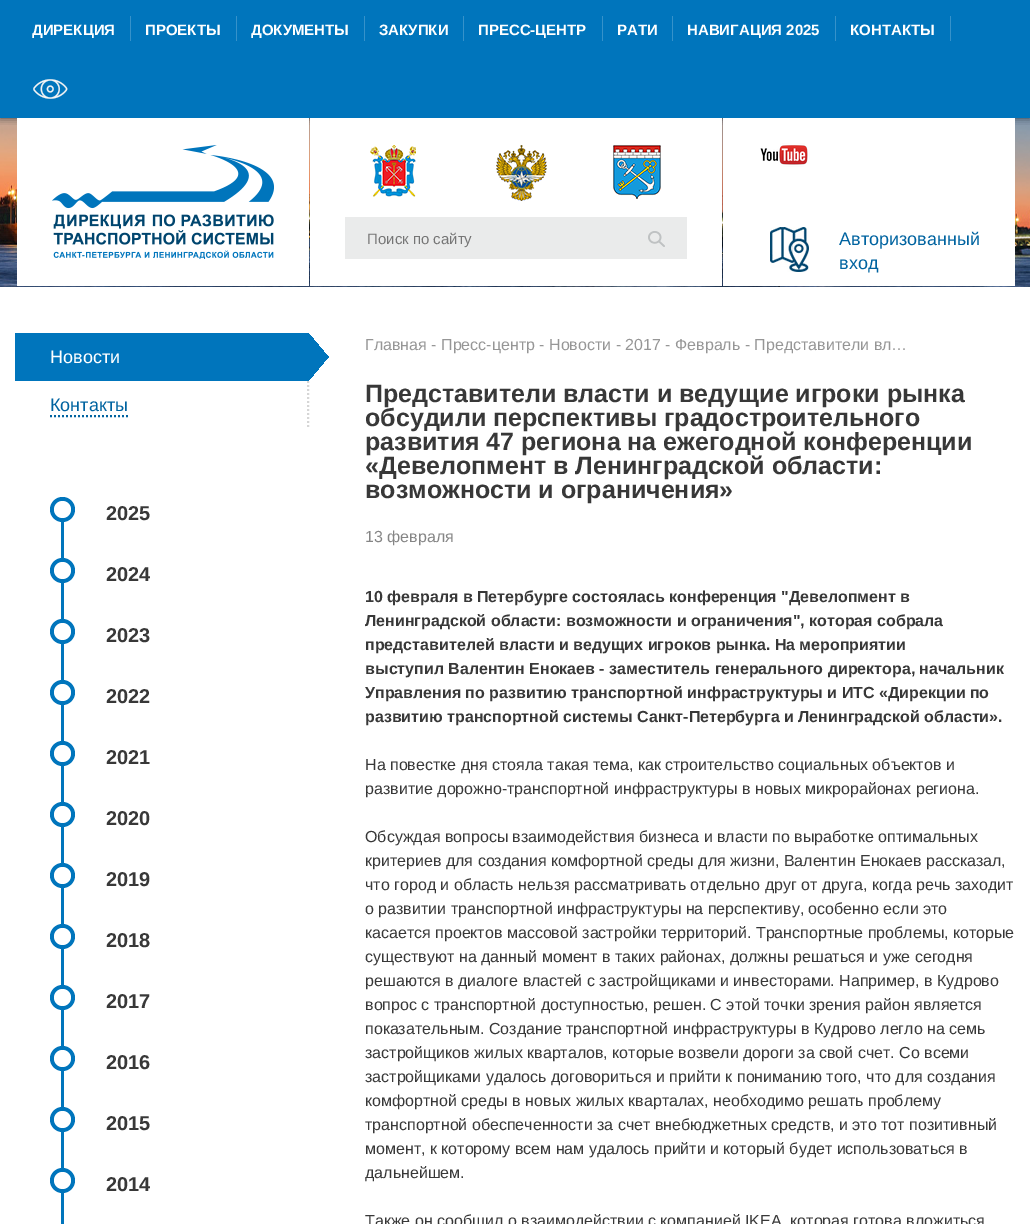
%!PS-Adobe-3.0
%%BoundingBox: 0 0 1030 1224
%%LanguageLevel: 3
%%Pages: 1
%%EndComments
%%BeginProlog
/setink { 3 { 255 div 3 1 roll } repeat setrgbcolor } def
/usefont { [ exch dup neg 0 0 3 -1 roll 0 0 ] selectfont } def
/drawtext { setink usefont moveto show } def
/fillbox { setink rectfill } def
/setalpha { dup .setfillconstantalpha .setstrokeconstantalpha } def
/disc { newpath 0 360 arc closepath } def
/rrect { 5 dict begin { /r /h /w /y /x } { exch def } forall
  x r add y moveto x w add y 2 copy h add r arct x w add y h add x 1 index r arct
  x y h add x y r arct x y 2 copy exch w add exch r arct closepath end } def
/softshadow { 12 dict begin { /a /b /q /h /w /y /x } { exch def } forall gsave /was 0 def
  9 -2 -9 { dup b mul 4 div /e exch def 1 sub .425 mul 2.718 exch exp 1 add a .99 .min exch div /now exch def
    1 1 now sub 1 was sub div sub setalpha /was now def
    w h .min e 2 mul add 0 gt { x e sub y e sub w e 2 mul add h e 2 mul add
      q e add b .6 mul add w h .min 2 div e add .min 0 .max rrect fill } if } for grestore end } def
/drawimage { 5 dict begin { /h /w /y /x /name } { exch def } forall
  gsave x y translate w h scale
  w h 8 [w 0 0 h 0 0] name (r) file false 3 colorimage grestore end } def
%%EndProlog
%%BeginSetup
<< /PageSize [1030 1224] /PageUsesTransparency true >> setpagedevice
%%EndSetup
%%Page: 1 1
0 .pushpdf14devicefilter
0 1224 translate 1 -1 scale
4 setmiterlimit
0 0 1030 1224 0 117 188 fillbox
(assets/img2.rgb) 0 118 1030 169 drawimage
gsave
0 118 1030 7 rectclip
0 0 0 setink
0 0 1030 118 0 4 0.6 softshadow
grestore
(ДИРЕКЦИЯ) 32 35 /LiberationSans-Bold 15 255 255 255 drawtext
130 16 1 25 54 146 202 fillbox
(ПРОЕКТЫ) 145 35 /LiberationSans-Bold 15 255 255 255 drawtext
236 16 1 25 54 146 202 fillbox
(ДОКУМЕНТЫ) 251 35 /LiberationSans-Bold 15 255 255 255 drawtext
364 16 1 25 54 146 202 fillbox
(ЗАКУПКИ) 379 35 /LiberationSans-Bold 15 255 255 255 drawtext
463 16 1 25 54 146 202 fillbox
(ПРЕСС-ЦЕНТР) 478 35 /LiberationSans-Bold 15 255 255 255 drawtext
602 16 1 25 54 146 202 fillbox
(РАТИ) 617 35 /LiberationSans-Bold 15 255 255 255 drawtext
672 16 1 25 54 146 202 fillbox
(НАВИГАЦИЯ 2025) 687 35 /LiberationSans-Bold 15 255 255 255 drawtext
835 16 1 25 54 146 202 fillbox
(КОНТАКТЫ) 850 35 /LiberationSans-Bold 15 255 255 255 drawtext
950 16 1 25 54 146 202 fillbox
(assets/img1.rgb) 33 79 35 20 drawimage
17 118 292 168 255 255 255 fillbox
(assets/img3.rgb) 52 145 222 114 drawimage
310 118 412 168 255 255 255 fillbox
(assets/img4.rgb) 370 145 46 52 drawimage
(assets/img5.rgb) 496 145 51 56 drawimage
(assets/img6.rgb) 613 145 48 54 drawimage
345 217 342 42 234 235 235 fillbox
(Поиск по сайту) 367 244 /LiberationSans-Regular 15 117 117 117 drawtext
(assets/img7.rgb) 648 231 17 16 drawimage
723 118 292 168 255 255 255 fillbox
(assets/img8.rgb) 760 143 50 24 drawimage
(assets/img9.rgb) 770 227 39 45 drawimage
(Авторизованный) 839 245 /LiberationSans-Regular 18 0 99 160 drawtext
(вход) 839 269 /LiberationSans-Regular 18 0 99 160 drawtext
0 287 1030 937 255 255 255 fillbox
214 214 214 setink
2 setlinewidth
[2 2] 0 setdash
308 333 moveto 308 429 lineto stroke
15 333 294 48 0 117 188 fillbox
(Новости) 50 363 /LiberationSans-Regular 18 255 255 255 drawtext
gsave 309 334 moveto 329 334 lineto 329 357 lineto 309 357 lineto closepath clip newpath
<< /ShadingType 2 /ColorSpace /DeviceRGB /Coords [307 355 331 335] /Extend [true true] /Function << /FunctionType 3 /Domain [0 1] /Functions [<< /FunctionType 2 /Domain [0 1] /C0 [0 0.459 0.737] /C1 [0 0.459 0.737] /N 1 >> << /FunctionType 2 /Domain [0 1] /C0 [1 1 1] /C1 [1 1 1] /N 1 >>] /Bounds [0.5] /Encode [0 1 0 1] >> >> shfill grestore
gsave 309 357 moveto 329 357 lineto 329 380 lineto 309 380 lineto closepath clip newpath
<< /ShadingType 2 /ColorSpace /DeviceRGB /Coords [307 359 331 379] /Extend [true true] /Function << /FunctionType 3 /Domain [0 1] /Functions [<< /FunctionType 2 /Domain [0 1] /C0 [0 0.459 0.737] /C1 [0 0.459 0.737] /N 1 >> << /FunctionType 2 /Domain [0 1] /C0 [1 1 1] /C1 [1 1 1] /N 1 >>] /Bounds [0.5] /Encode [0 1 0 1] >> >> shfill grestore
(Контакты) 50 411 /LiberationSans-Regular 18 0 99 160 drawtext
50 416 moveto 128 416 lineto stroke
0 117 188 setink
62.5 509.5 12.5 disc fill
255 255 255 setink
62.5 509.5 8.5 disc fill
(2025) 106 520 /LiberationSans-Bold 20 56 56 56 drawtext
61 522 3 36 0 117 188 fillbox
62.5 570.5 12.5 disc fill
255 255 255 setink
62.5 570.5 8.5 disc fill
(2024) 106 581 /LiberationSans-Bold 20 56 56 56 drawtext
61 583 3 36 0 117 188 fillbox
62.5 631.5 12.5 disc fill
255 255 255 setink
62.5 631.5 8.5 disc fill
(2023) 106 642 /LiberationSans-Bold 20 56 56 56 drawtext
61 644 3 36 0 117 188 fillbox
62.5 692.5 12.5 disc fill
255 255 255 setink
62.5 692.5 8.5 disc fill
(2022) 106 703 /LiberationSans-Bold 20 56 56 56 drawtext
61 705 3 36 0 117 188 fillbox
62.5 753.5 12.5 disc fill
255 255 255 setink
62.5 753.5 8.5 disc fill
(2021) 106 764 /LiberationSans-Bold 20 56 56 56 drawtext
61 766 3 36 0 117 188 fillbox
62.5 814.5 12.5 disc fill
255 255 255 setink
62.5 814.5 8.5 disc fill
(2020) 106 825 /LiberationSans-Bold 20 56 56 56 drawtext
61 827 3 36 0 117 188 fillbox
62.5 875.5 12.5 disc fill
255 255 255 setink
62.5 875.5 8.5 disc fill
(2019) 106 886 /LiberationSans-Bold 20 56 56 56 drawtext
61 888 3 36 0 117 188 fillbox
62.5 936.5 12.5 disc fill
255 255 255 setink
62.5 936.5 8.5 disc fill
(2018) 106 947 /LiberationSans-Bold 20 56 56 56 drawtext
61 949 3 36 0 117 188 fillbox
62.5 997.5 12.5 disc fill
255 255 255 setink
62.5 997.5 8.5 disc fill
(2017) 106 1008 /LiberationSans-Bold 20 56 56 56 drawtext
61 1010 3 36 0 117 188 fillbox
62.5 1058.5 12.5 disc fill
255 255 255 setink
62.5 1058.5 8.5 disc fill
(2016) 106 1069 /LiberationSans-Bold 20 56 56 56 drawtext
61 1071 3 36 0 117 188 fillbox
62.5 1119.5 12.5 disc fill
255 255 255 setink
62.5 1119.5 8.5 disc fill
(2015) 106 1130 /LiberationSans-Bold 20 56 56 56 drawtext
61 1132 3 36 0 117 188 fillbox
62.5 1180.5 12.5 disc fill
255 255 255 setink
62.5 1180.5 8.5 disc fill
(2014) 106 1191 /LiberationSans-Bold 20 56 56 56 drawtext
61 1193 3 31 0 117 188 fillbox
(Главная - Пресс-центр - Новости - 2017 - Февраль - Представители вл…) 365 350 /LiberationSans-Regular 16 150 150 150 drawtext
(Представители власти и ведущие игроки рынка) 365 402 /LiberationSans-Bold 25 56 56 56 drawtext
(обсудили перспективы градостроительного) 365 426 /LiberationSans-Bold 25 56 56 56 drawtext
(развития 47 региона на ежегодной конференции) 365 450 /LiberationSans-Bold 25 56 56 56 drawtext
(«Девелопмент в Ленинградской области:) 365 474 /LiberationSans-Bold 25 56 56 56 drawtext
(возможности и ограничения») 365 498 /LiberationSans-Bold 25 56 56 56 drawtext
(13 февраля) 365 542 /LiberationSans-Regular 16 133 133 133 drawtext
(10 февраля в Петербурге состоялась конференция "Девелопмент в) 365 602 /LiberationSans-Bold 16 56 56 56 drawtext
(Ленинградской области: возможности и ограничения", которая собрала) 365 626 /LiberationSans-Bold 16 56 56 56 drawtext
(представителей власти и ведущих игроков рынка. На мероприятии) 365 650 /LiberationSans-Bold 16 56 56 56 drawtext
(выступил Валентин Енокаев - заместитель генерального директора, начальник) 365 674 /LiberationSans-Bold 16 56 56 56 drawtext
(Управления по развитию транспортной инфраструктуры и ИТС «Дирекции по) 365 698 /LiberationSans-Bold 16 56 56 56 drawtext
(развитию транспортной системы Санкт-Петербурга и Ленинградской области».) 365 722 /LiberationSans-Bold 16 56 56 56 drawtext
(На повестке дня стояла такая тема, как строительство социальных объектов и) 365 770 /LiberationSans-Regular 16 56 56 56 drawtext
(развитие дорожно-транспортной инфраструктуры в новых микрорайонах региона.) 365 794 /LiberationSans-Regular 16 56 56 56 drawtext
(Обсуждая вопросы взаимодействия бизнеса и власти по выработке оптимальных) 365 842 /LiberationSans-Regular 16 56 56 56 drawtext
(критериев для создания комфортной среды для жизни, Валентин Енокаев рассказал,) 365 866 /LiberationSans-Regular 16 56 56 56 drawtext
(что город и область нельзя рассматривать отдельно друг от друга, когда речь заходит) 365 890 /LiberationSans-Regular 16 56 56 56 drawtext
(о развитии транспортной инфраструктуры на перспективу, особенно если это) 365 914 /LiberationSans-Regular 16 56 56 56 drawtext
(касается проектов массовой застройки территорий. Транспортные проблемы, которые) 365 938 /LiberationSans-Regular 16 56 56 56 drawtext
(существуют на данный момент в таких районах, должны решаться и уже сегодня) 365 962 /LiberationSans-Regular 16 56 56 56 drawtext
(решаются в диалоге властей с застройщиками и инвесторами. Например, в Кудрово) 365 986 /LiberationSans-Regular 16 56 56 56 drawtext
(вопрос с транспортной доступностью, решен. С этой точки зрения район является) 365 1010 /LiberationSans-Regular 16 56 56 56 drawtext
(показательным. Создание транспортной инфраструктуры в Кудрово легло на семь) 365 1034 /LiberationSans-Regular 16 56 56 56 drawtext
(застройщиков жилых кварталов, которые возвели дороги за свой счет. Со всеми) 365 1058 /LiberationSans-Regular 16 56 56 56 drawtext
(застройщиками удалось договориться и прийти к пониманию того, что для создания) 365 1082 /LiberationSans-Regular 16 56 56 56 drawtext
(комфортной среды в новых жилых кварталах, необходимо решать проблему) 365 1106 /LiberationSans-Regular 16 56 56 56 drawtext
(транспортной обеспеченности за счет внебюджетных средств, и это тот позитивный) 365 1130 /LiberationSans-Regular 16 56 56 56 drawtext
(момент, к которому всем нам удалось прийти и который будет использоваться в) 365 1154 /LiberationSans-Regular 16 56 56 56 drawtext
(дальнейшем.) 365 1178 /LiberationSans-Regular 16 56 56 56 drawtext
(Также он сообщил о взаимодействии с компанией IKEA, которая готова вложиться) 365 1226 /LiberationSans-Regular 16 56 56 56 drawtext
.poppdf14devicefilter showpage
%%EOF
